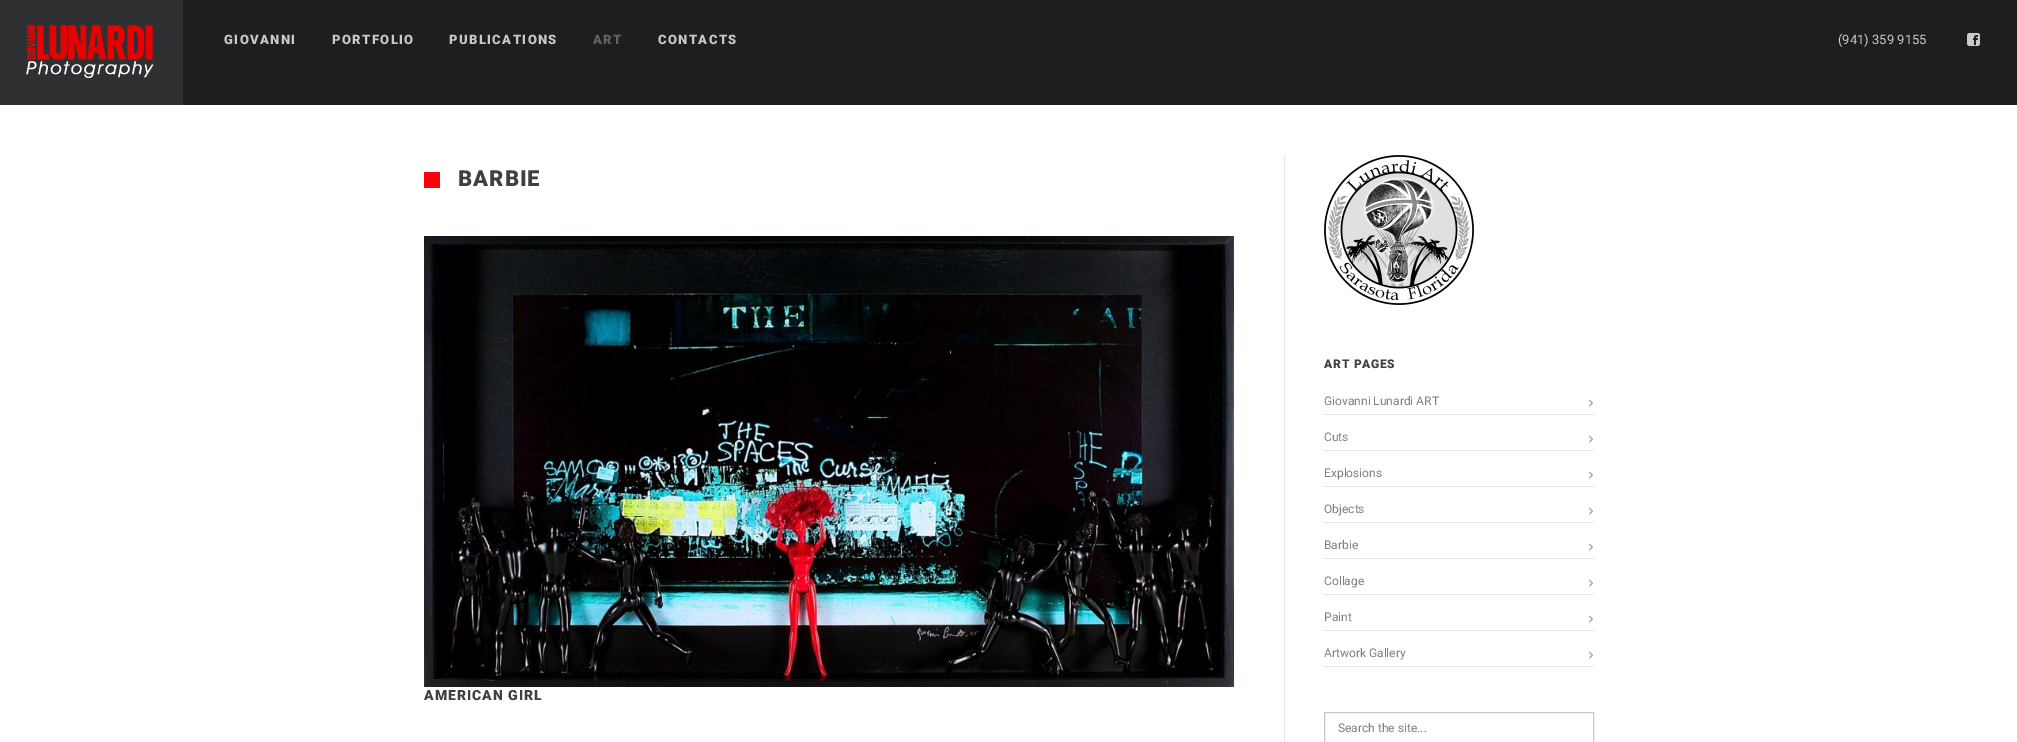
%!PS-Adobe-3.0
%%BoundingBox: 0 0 2017 742
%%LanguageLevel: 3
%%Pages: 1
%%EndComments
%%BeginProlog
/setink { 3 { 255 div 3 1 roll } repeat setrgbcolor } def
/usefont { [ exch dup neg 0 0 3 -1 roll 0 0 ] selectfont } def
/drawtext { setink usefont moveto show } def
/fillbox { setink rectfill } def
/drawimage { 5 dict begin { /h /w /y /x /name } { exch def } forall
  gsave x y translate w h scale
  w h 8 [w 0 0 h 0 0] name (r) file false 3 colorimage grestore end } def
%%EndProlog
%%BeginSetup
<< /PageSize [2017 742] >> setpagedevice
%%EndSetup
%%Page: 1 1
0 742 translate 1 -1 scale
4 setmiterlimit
0 0 2017 742 255 255 255 fillbox
183 0 1834 105 29 30 31 fillbox
0 0 183 105 46 48 50 fillbox
(assets/img1.rgb) 26 25 128 53 drawimage
/Roboto-Black 13 usefont
199 202 204 setink
224 44 moveto 1.4 0 (GIOVANNI) ashow
332 44 moveto 1.4 0 (PORTFOLIO) ashow
449 44 moveto 1.4 0 (PUBLICATIONS) ashow
97 99 100 setink
593 44 moveto 1.4 0 (ART) ashow
199 202 204 setink
658 44 moveto 1.4 0 (CONTACTS) ashow
(\(941\) 359 9155) 1838 44 /Roboto-Regular 13 199 202 204 drawtext
(assets/img2.rgb) 1967 33 13 13 drawimage
424 172 16 16 255 0 13 fillbox
/Roboto-Black 22 usefont
63 64 65 setink
458 186 moveto 1 0 (BARBIE) ashow
(assets/img3.rgb) 424 236 810 451 drawimage
/Roboto-Black 14 usefont
424 700 moveto 1 0 (AMERICAN GIRL) ashow
1284 155 1 587 228 231 233 fillbox
(assets/img4.rgb) 1324 155 150 150 drawimage
/Roboto-Black 12 usefont
63 64 65 setink
1324 368 moveto 0.75 0 (ART PAGES) ashow
1324 414 270 1 228 231 233 fillbox
(Giovanni Lunardi ART) 1324 405 /Roboto-Regular 12 126 127 129 drawtext
(assets/img5.rgb) 1589 399 4 8 drawimage
1324 450 270 1 228 231 233 fillbox
(Cuts) 1324 441 /Roboto-Regular 12 126 127 129 drawtext
(assets/img5.rgb) 1589 435 4 8 drawimage
1324 486 270 1 228 231 233 fillbox
(Explosions) 1324 477 /Roboto-Regular 12 126 127 129 drawtext
(assets/img5.rgb) 1589 471 4 8 drawimage
1324 522 270 1 228 231 233 fillbox
(Objects) 1324 513 /Roboto-Regular 12 126 127 129 drawtext
(assets/img5.rgb) 1589 507 4 8 drawimage
1324 558 270 1 228 231 233 fillbox
(Barbie) 1324 549 /Roboto-Regular 12 126 127 129 drawtext
(assets/img5.rgb) 1589 543 4 8 drawimage
1324 594 270 1 228 231 233 fillbox
(Collage) 1324 585 /Roboto-Regular 12 126 127 129 drawtext
(assets/img5.rgb) 1589 579 4 8 drawimage
1324 630 270 1 228 231 233 fillbox
(Paint) 1324 621 /Roboto-Regular 12 126 127 129 drawtext
(assets/img5.rgb) 1589 615 4 8 drawimage
1324 666 270 1 228 231 233 fillbox
(Artwork Gallery) 1324 657 /Roboto-Regular 12 126 127 129 drawtext
(assets/img5.rgb) 1589 651 4 8 drawimage
200 201 204 setink
1324.5 712.5 269 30 rectstroke
(Search the site...) 1338 732 /Roboto-Regular 12 126 127 129 drawtext
showpage
%%EOF
